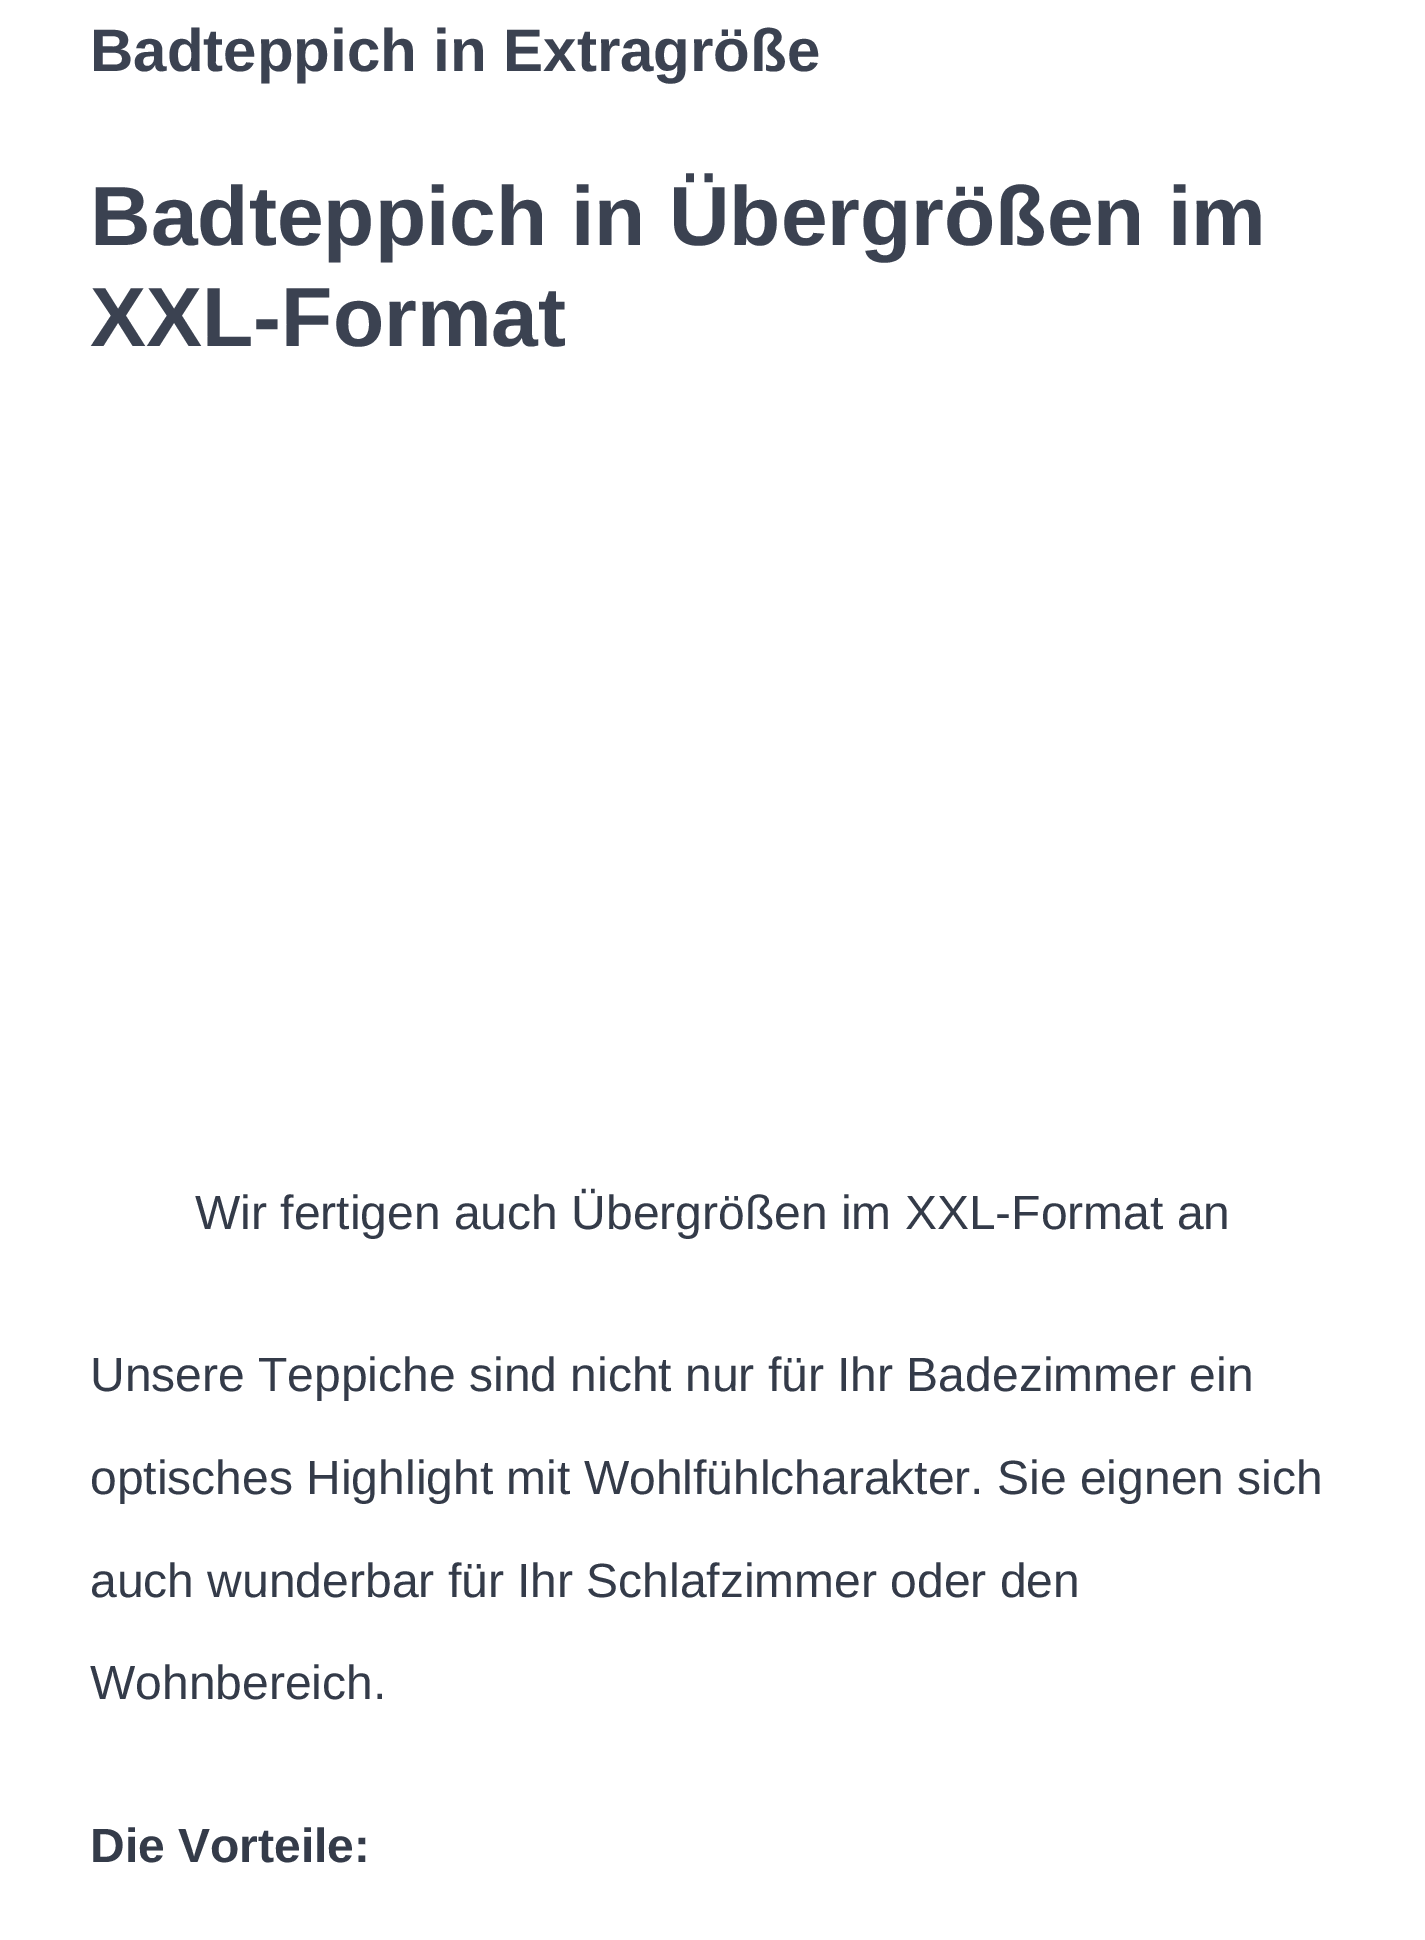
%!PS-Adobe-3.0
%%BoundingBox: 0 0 1425 1940
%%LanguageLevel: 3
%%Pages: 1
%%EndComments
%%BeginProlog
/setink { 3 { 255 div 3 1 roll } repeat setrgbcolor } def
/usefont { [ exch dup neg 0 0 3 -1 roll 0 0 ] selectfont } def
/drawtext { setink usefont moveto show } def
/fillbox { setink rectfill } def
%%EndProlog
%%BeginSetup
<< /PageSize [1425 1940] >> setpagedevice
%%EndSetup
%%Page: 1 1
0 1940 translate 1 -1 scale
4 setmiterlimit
0 0 1425 1940 255 255 255 fillbox
(Badteppich in Extragröße) 90 71 /LiberationSans-Bold 60 59 66 81 drawtext
(Badteppich in Übergrößen im) 90 245 /LiberationSans-Bold 84 59 66 81 drawtext
(XXL-Format) 90 346 /LiberationSans-Bold 84 59 66 81 drawtext
(Wir fertigen auch Übergrößen im XXL-Format an) 195 1229 /LiberationSans-Regular 48 52 59 73 drawtext
(Unsere Teppiche sind nicht nur für Ihr Badezimmer ein) 90 1391 /LiberationSans-Regular 48 52 59 73 drawtext
(optisches Highlight mit Wohlfühlcharakter. Sie eignen sich) 90 1494 /LiberationSans-Regular 48 52 59 73 drawtext
(auch wunderbar für Ihr Schlafzimmer oder den) 90 1597 /LiberationSans-Regular 48 52 59 73 drawtext
(Wohnbereich.) 90 1699 /LiberationSans-Regular 48 52 59 73 drawtext
(Die Vorteile:) 90 1862 /LiberationSans-Bold 48 52 59 73 drawtext
showpage
%%EOF
